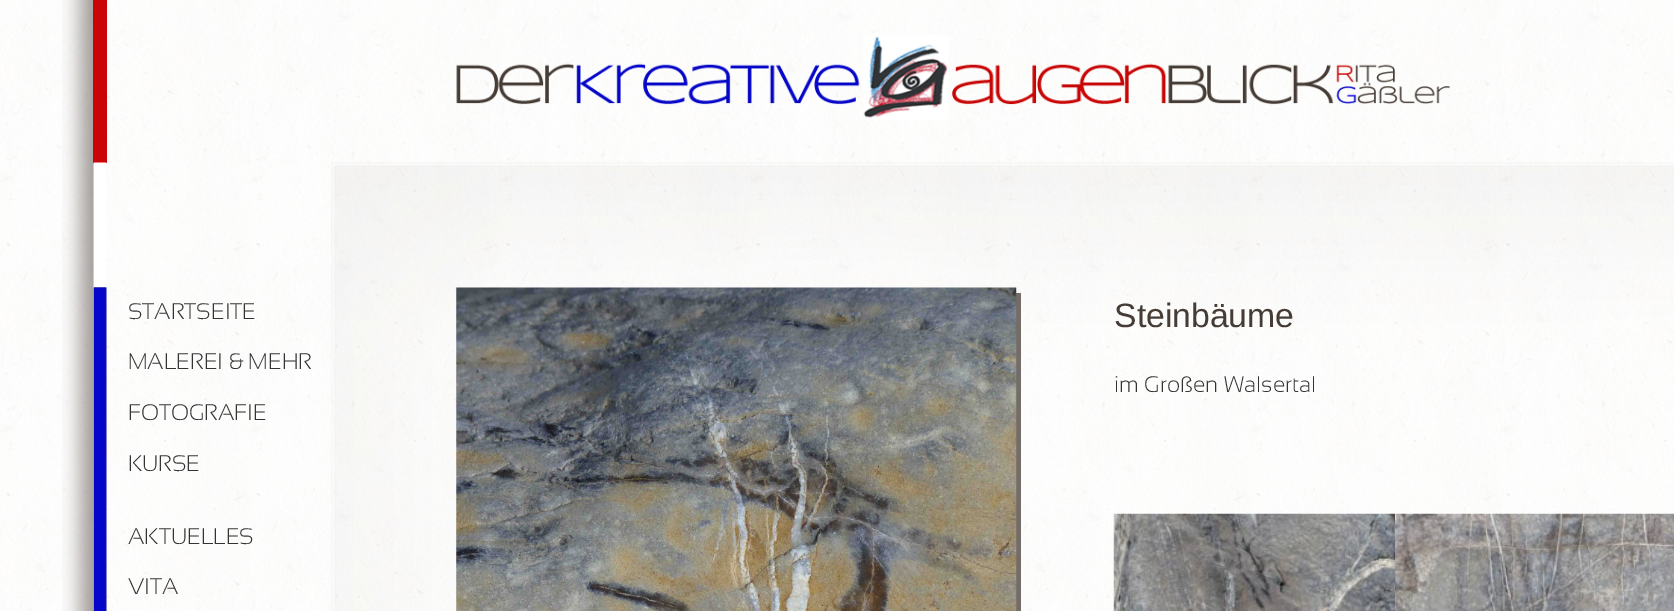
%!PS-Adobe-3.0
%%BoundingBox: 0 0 1674 611
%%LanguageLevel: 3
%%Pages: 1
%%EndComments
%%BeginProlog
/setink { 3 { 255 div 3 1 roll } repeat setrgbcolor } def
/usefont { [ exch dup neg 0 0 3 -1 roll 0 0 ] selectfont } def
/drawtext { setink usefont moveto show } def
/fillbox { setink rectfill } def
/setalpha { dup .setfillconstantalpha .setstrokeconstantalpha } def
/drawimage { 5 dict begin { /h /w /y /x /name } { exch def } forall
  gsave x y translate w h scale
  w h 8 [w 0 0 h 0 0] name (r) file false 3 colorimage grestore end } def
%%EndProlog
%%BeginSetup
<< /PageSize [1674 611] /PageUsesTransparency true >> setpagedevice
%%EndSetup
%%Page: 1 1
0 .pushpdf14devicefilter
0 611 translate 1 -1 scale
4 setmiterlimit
0 0 1674 611 255 255 255 fillbox
(assets/img1.rgb) 0 0 1674 611 drawimage
(assets/img2.rgb) 62 0 32 611 drawimage
93 0 14 163 201 5 6 fillbox
(assets/img3.rgb) 456 35 994 85 drawimage
(assets/img4.rgb) 93 162 14 449 drawimage
(assets/img5.rgb) 94 287 13 324 drawimage
(STARTSEITE) 128 319 /SansationLight-Light 22.5 51 51 51 drawtext
(MALEREI & MEHR) 128 369 /SansationLight-Light 22.5 51 51 51 drawtext
(FOTOGRAFIE) 128 420 /SansationLight-Light 22.5 51 51 51 drawtext
(KURSE) 128 471 /SansationLight-Light 22.5 51 51 51 drawtext
(AKTUELLES) 128 544 /SansationLight-Light 22.5 51 51 51 drawtext
(VITA) 128 594 /SansationLight-Light 22.5 51 51 51 drawtext
(assets/img6.rgb) 331 162 1343 449 drawimage
0.75 setalpha
70 60 54 setink
461 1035 moveto 461 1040 lineto 1021 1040 lineto 1021 293 lineto 1016 293 lineto 1016 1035 lineto closepath fill
1 setalpha
(assets/img7.rgb) 456 287 561 324 drawimage
(Steinbäume) 1114 327 /LiberationSans-Regular 33.75 70 60 54 drawtext
(im Großen Walsertal) 1114 392 /SansationLight-Light 22.5 51 51 51 drawtext
(assets/img8.rgb) 1113 513 282 98 drawimage
(assets/img9.rgb) 1395 513 279 98 drawimage
.poppdf14devicefilter showpage
%%EOF
